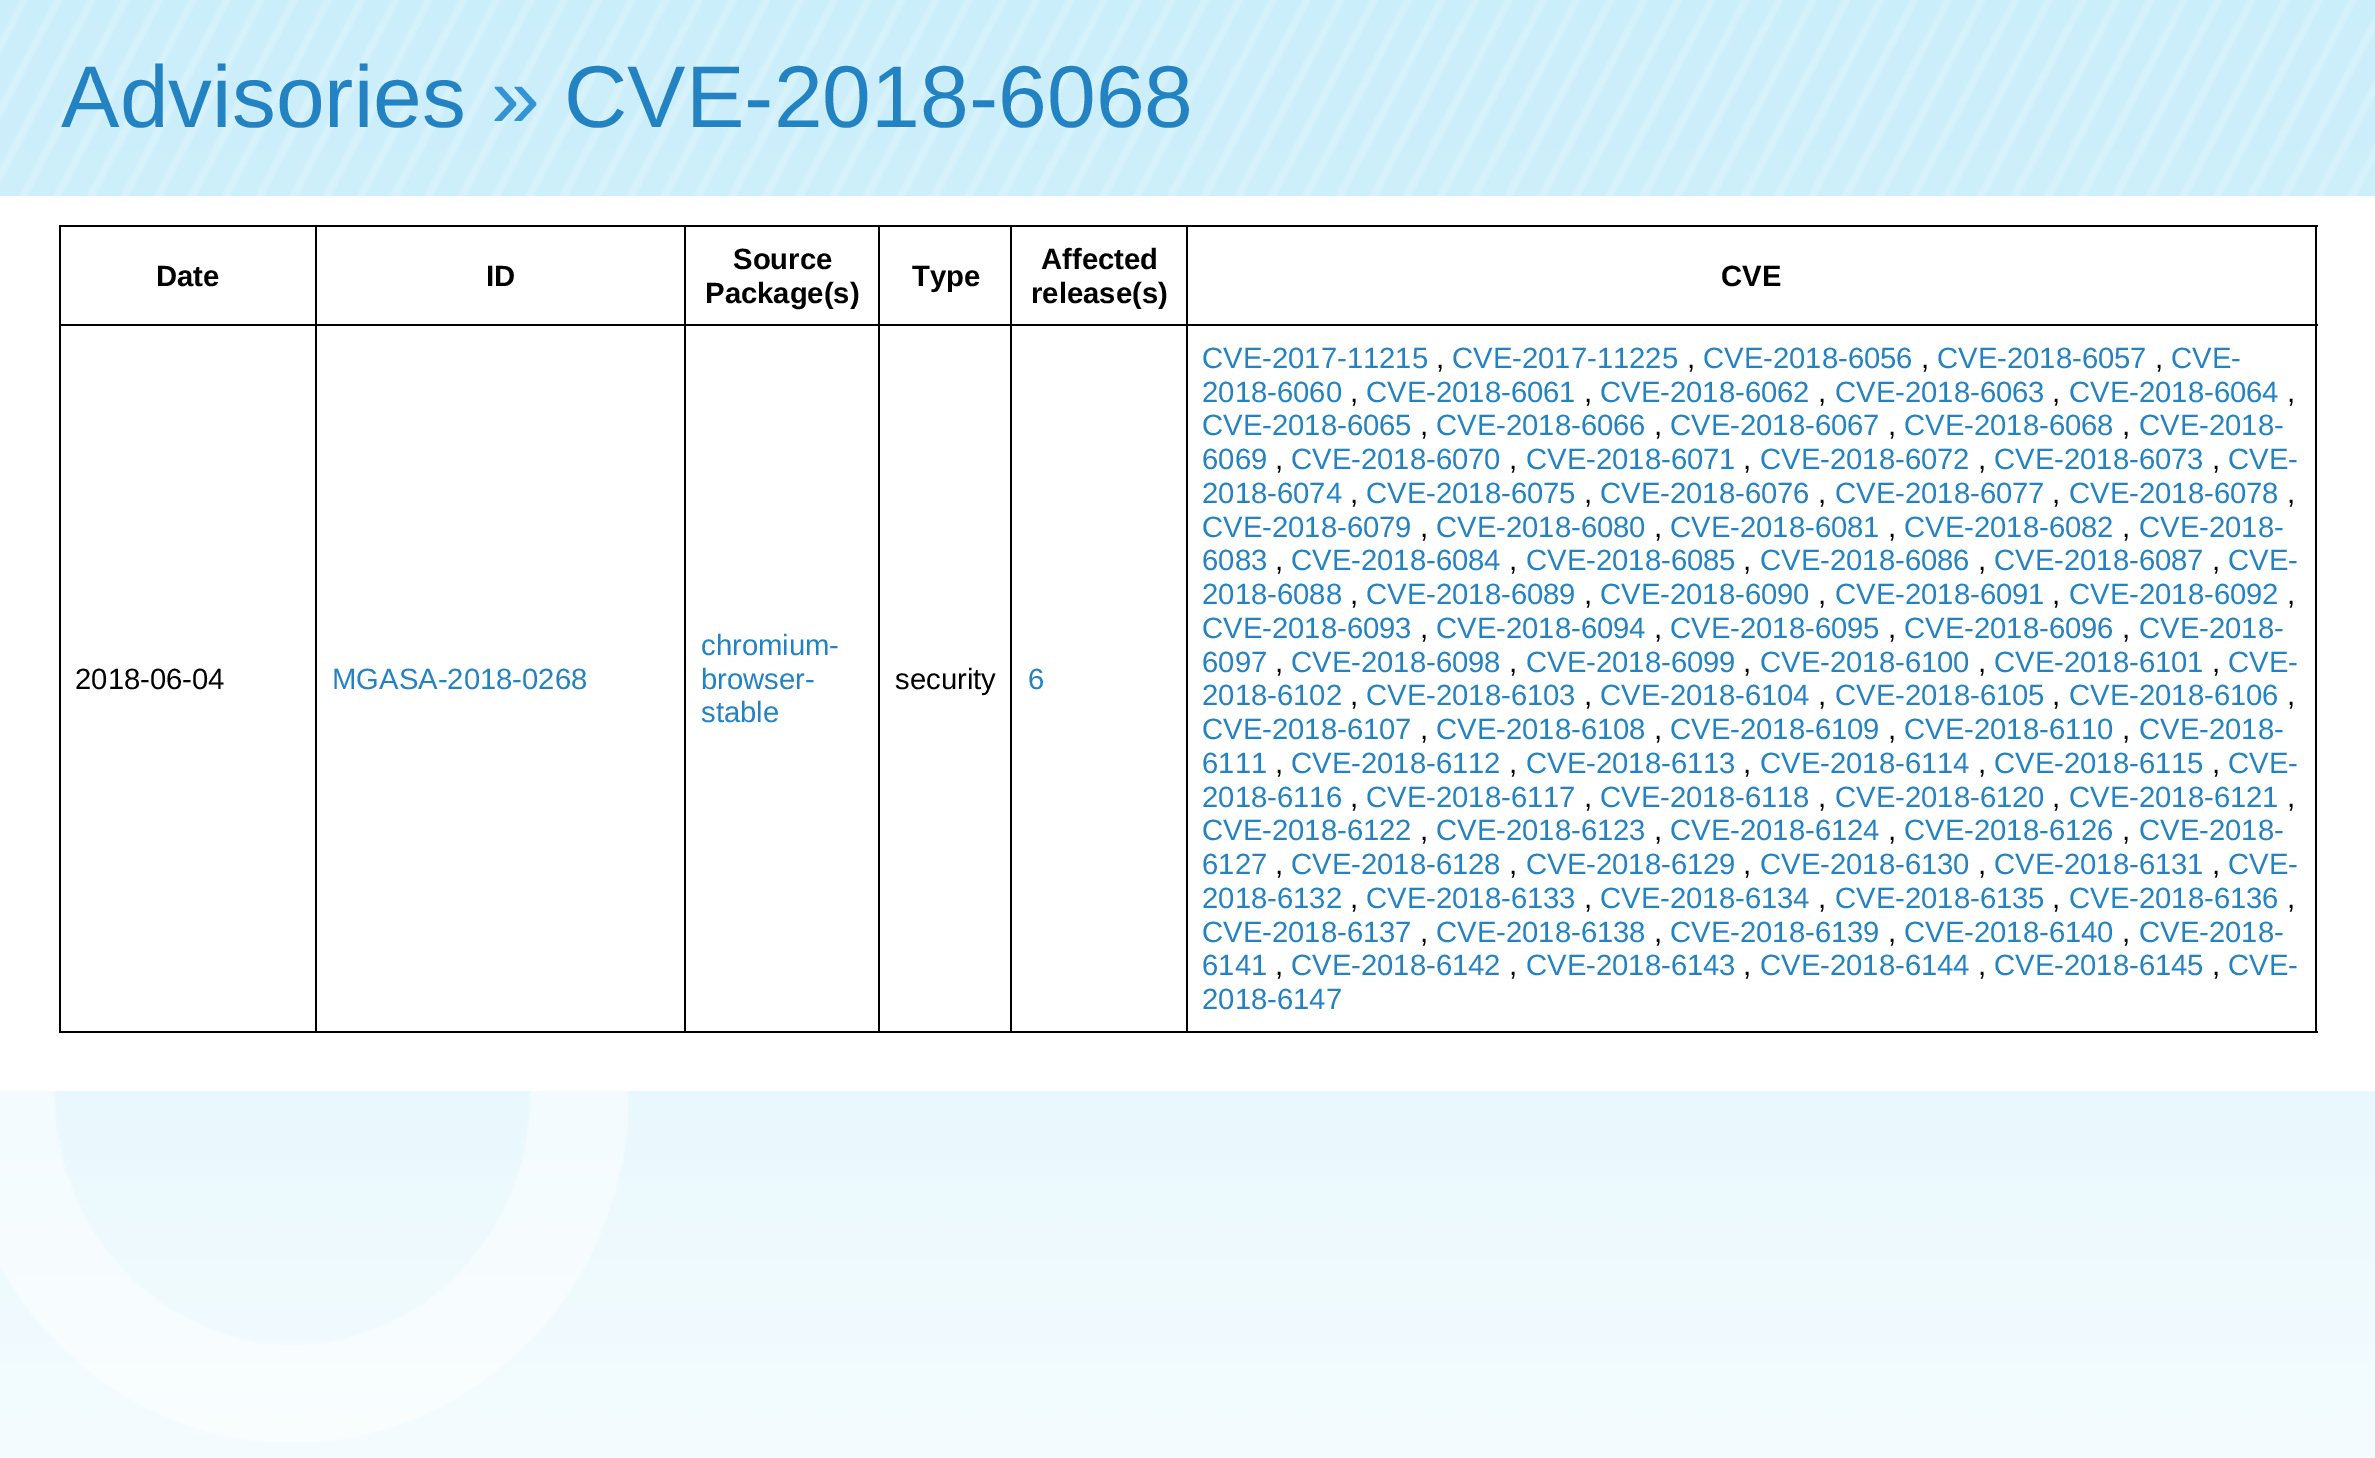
%!PS-Adobe-3.0
%%BoundingBox: 0 0 2375 1458
%%LanguageLevel: 3
%%Pages: 1
%%EndComments
%%BeginProlog
/setink { 3 { 255 div 3 1 roll } repeat setrgbcolor } def
/usefont { [ exch dup neg 0 0 3 -1 roll 0 0 ] selectfont } def
/drawtext { setink usefont moveto show } def
/fillbox { setink rectfill } def
/drawimage { 5 dict begin { /h /w /y /x /name } { exch def } forall
  gsave x y translate w h scale
  w h 8 [w 0 0 h 0 0] name (r) file false 3 colorimage grestore end } def
%%EndProlog
%%BeginSetup
<< /PageSize [2375 1458] >> setpagedevice
%%EndSetup
%%Page: 1 1
0 1458 translate 1 -1 scale
4 setmiterlimit
0 0 2375 1458 255 255 255 fillbox
(assets/img1.rgb) 0 0 2375 1458 drawimage
(assets/img2.rgb) 0 1091 629 351 drawimage
(Advisories) 61 127 /LiberationSans-Regular 87.75 35 131 194 drawtext
(») 491 127 /LiberationSans-Regular 87.75 52 148 211 drawtext
(CVE-2018-6068) 564 127 /LiberationSans-Regular 87.75 35 131 194 drawtext
0 196 2375 895 255 255 255 fillbox
1186 225 1132 2 0 0 0 fillbox
1186 324 1132 2 0 0 0 fillbox
2315 324 2 709 0 0 0 fillbox
1186 1031 1132 2 0 0 0 fillbox
1186 324 2 709 0 0 0 fillbox
1010 324 178 2 0 0 0 fillbox
1186 225 2 101 0 0 0 fillbox
1010 225 178 2 0 0 0 fillbox
1010 1031 178 2 0 0 0 fillbox
1010 324 2 709 0 0 0 fillbox
878 324 135 2 0 0 0 fillbox
1010 225 2 101 0 0 0 fillbox
878 225 135 2 0 0 0 fillbox
878 1031 135 2 0 0 0 fillbox
878 324 2 709 0 0 0 fillbox
684 324 196 2 0 0 0 fillbox
878 225 2 101 0 0 0 fillbox
684 225 196 2 0 0 0 fillbox
684 1031 196 2 0 0 0 fillbox
684 324 2 709 0 0 0 fillbox
315 324 371 2 0 0 0 fillbox
684 225 2 101 0 0 0 fillbox
315 225 371 2 0 0 0 fillbox
315 1031 371 2 0 0 0 fillbox
315 324 2 709 0 0 0 fillbox
59 324 258 2 0 0 0 fillbox
315 225 2 101 0 0 0 fillbox
59 225 258 2 0 0 0 fillbox
59 1031 258 2 0 0 0 fillbox
59 324 2 709 0 0 0 fillbox
59 225 2 101 0 0 0 fillbox
(Date) 156 286 /LiberationSans-Bold 29.25 0 0 0 drawtext
(ID) 486 286 /LiberationSans-Bold 29.25 0 0 0 drawtext
(Source) 733 269 /LiberationSans-Bold 29.25 0 0 0 drawtext
(Package\(s\)) 705 303 /LiberationSans-Bold 29.25 0 0 0 drawtext
(Type) 912 286 /LiberationSans-Bold 29.25 0 0 0 drawtext
(Affected) 1041 269 /LiberationSans-Bold 29.25 0 0 0 drawtext
(release\(s\)) 1031 303 /LiberationSans-Bold 29.25 0 0 0 drawtext
2315 225 2 101 0 0 0 fillbox
(CVE) 1721 286 /LiberationSans-Bold 29.25 0 0 0 drawtext
(2018-06-04) 75 689 /LiberationSans-Regular 29.25 0 0 0 drawtext
(MGASA-2018-0268) 332 689 /LiberationSans-Regular 29.25 35 131 194 drawtext
(chromium-) 701 655 /LiberationSans-Regular 29.25 35 131 194 drawtext
(browser-) 701 689 /LiberationSans-Regular 29.25 35 131 194 drawtext
(stable) 701 722 /LiberationSans-Regular 29.25 35 131 194 drawtext
(security) 895 689 /LiberationSans-Regular 29.25 0 0 0 drawtext
(6) 1028 689 /LiberationSans-Regular 29.25 35 131 194 drawtext
(CVE-2017-11215) 1202 368 /LiberationSans-Regular 29.25 35 131 194 drawtext
(,) 1436 368 /LiberationSans-Regular 29.25 0 0 0 drawtext
(CVE-2017-11225) 1452 368 /LiberationSans-Regular 29.25 35 131 194 drawtext
(,) 1687 368 /LiberationSans-Regular 29.25 0 0 0 drawtext
(CVE-2018-6056) 1703 368 /LiberationSans-Regular 29.25 35 131 194 drawtext
(,) 1921 368 /LiberationSans-Regular 29.25 0 0 0 drawtext
(CVE-2018-6057) 1937 368 /LiberationSans-Regular 29.25 35 131 194 drawtext
(,) 2155 368 /LiberationSans-Regular 29.25 0 0 0 drawtext
(CVE-) 2171 368 /LiberationSans-Regular 29.25 35 131 194 drawtext
(2018-6060) 1202 402 /LiberationSans-Regular 29.25 35 131 194 drawtext
(,) 1350 402 /LiberationSans-Regular 29.25 0 0 0 drawtext
(CVE-2018-6061) 1366 402 /LiberationSans-Regular 29.25 35 131 194 drawtext
(,) 1584 402 /LiberationSans-Regular 29.25 0 0 0 drawtext
(CVE-2018-6062) 1600 402 /LiberationSans-Regular 29.25 35 131 194 drawtext
(,) 1818 402 /LiberationSans-Regular 29.25 0 0 0 drawtext
(CVE-2018-6063) 1835 402 /LiberationSans-Regular 29.25 35 131 194 drawtext
(,) 2052 402 /LiberationSans-Regular 29.25 0 0 0 drawtext
(CVE-2018-6064) 2069 402 /LiberationSans-Regular 29.25 35 131 194 drawtext
(,) 2287 402 /LiberationSans-Regular 29.25 0 0 0 drawtext
(CVE-2018-6065) 1202 435 /LiberationSans-Regular 29.25 35 131 194 drawtext
(,) 1420 435 /LiberationSans-Regular 29.25 0 0 0 drawtext
(CVE-2018-6066) 1436 435 /LiberationSans-Regular 29.25 35 131 194 drawtext
(,) 1654 435 /LiberationSans-Regular 29.25 0 0 0 drawtext
(CVE-2018-6067) 1670 435 /LiberationSans-Regular 29.25 35 131 194 drawtext
(,) 1888 435 /LiberationSans-Regular 29.25 0 0 0 drawtext
(CVE-2018-6068) 1904 435 /LiberationSans-Regular 29.25 35 131 194 drawtext
(,) 2122 435 /LiberationSans-Regular 29.25 0 0 0 drawtext
(CVE-2018-) 2139 435 /LiberationSans-Regular 29.25 35 131 194 drawtext
(6069) 1202 469 /LiberationSans-Regular 29.25 35 131 194 drawtext
(,) 1275 469 /LiberationSans-Regular 29.25 0 0 0 drawtext
(CVE-2018-6070) 1291 469 /LiberationSans-Regular 29.25 35 131 194 drawtext
(,) 1509 469 /LiberationSans-Regular 29.25 0 0 0 drawtext
(CVE-2018-6071) 1526 469 /LiberationSans-Regular 29.25 35 131 194 drawtext
(,) 1743 469 /LiberationSans-Regular 29.25 0 0 0 drawtext
(CVE-2018-6072) 1760 469 /LiberationSans-Regular 29.25 35 131 194 drawtext
(,) 1978 469 /LiberationSans-Regular 29.25 0 0 0 drawtext
(CVE-2018-6073) 1994 469 /LiberationSans-Regular 29.25 35 131 194 drawtext
(,) 2212 469 /LiberationSans-Regular 29.25 0 0 0 drawtext
(CVE-) 2228 469 /LiberationSans-Regular 29.25 35 131 194 drawtext
(2018-6074) 1202 503 /LiberationSans-Regular 29.25 35 131 194 drawtext
(,) 1350 503 /LiberationSans-Regular 29.25 0 0 0 drawtext
(CVE-2018-6075) 1366 503 /LiberationSans-Regular 29.25 35 131 194 drawtext
(,) 1584 503 /LiberationSans-Regular 29.25 0 0 0 drawtext
(CVE-2018-6076) 1600 503 /LiberationSans-Regular 29.25 35 131 194 drawtext
(,) 1818 503 /LiberationSans-Regular 29.25 0 0 0 drawtext
(CVE-2018-6077) 1835 503 /LiberationSans-Regular 29.25 35 131 194 drawtext
(,) 2052 503 /LiberationSans-Regular 29.25 0 0 0 drawtext
(CVE-2018-6078) 2069 503 /LiberationSans-Regular 29.25 35 131 194 drawtext
(,) 2287 503 /LiberationSans-Regular 29.25 0 0 0 drawtext
(CVE-2018-6079) 1202 537 /LiberationSans-Regular 29.25 35 131 194 drawtext
(,) 1420 537 /LiberationSans-Regular 29.25 0 0 0 drawtext
(CVE-2018-6080) 1436 537 /LiberationSans-Regular 29.25 35 131 194 drawtext
(,) 1654 537 /LiberationSans-Regular 29.25 0 0 0 drawtext
(CVE-2018-6081) 1670 537 /LiberationSans-Regular 29.25 35 131 194 drawtext
(,) 1888 537 /LiberationSans-Regular 29.25 0 0 0 drawtext
(CVE-2018-6082) 1904 537 /LiberationSans-Regular 29.25 35 131 194 drawtext
(,) 2122 537 /LiberationSans-Regular 29.25 0 0 0 drawtext
(CVE-2018-) 2139 537 /LiberationSans-Regular 29.25 35 131 194 drawtext
(6083) 1202 570 /LiberationSans-Regular 29.25 35 131 194 drawtext
(,) 1275 570 /LiberationSans-Regular 29.25 0 0 0 drawtext
(CVE-2018-6084) 1291 570 /LiberationSans-Regular 29.25 35 131 194 drawtext
(,) 1509 570 /LiberationSans-Regular 29.25 0 0 0 drawtext
(CVE-2018-6085) 1526 570 /LiberationSans-Regular 29.25 35 131 194 drawtext
(,) 1743 570 /LiberationSans-Regular 29.25 0 0 0 drawtext
(CVE-2018-6086) 1760 570 /LiberationSans-Regular 29.25 35 131 194 drawtext
(,) 1978 570 /LiberationSans-Regular 29.25 0 0 0 drawtext
(CVE-2018-6087) 1994 570 /LiberationSans-Regular 29.25 35 131 194 drawtext
(,) 2212 570 /LiberationSans-Regular 29.25 0 0 0 drawtext
(CVE-) 2228 570 /LiberationSans-Regular 29.25 35 131 194 drawtext
(2018-6088) 1202 604 /LiberationSans-Regular 29.25 35 131 194 drawtext
(,) 1350 604 /LiberationSans-Regular 29.25 0 0 0 drawtext
(CVE-2018-6089) 1366 604 /LiberationSans-Regular 29.25 35 131 194 drawtext
(,) 1584 604 /LiberationSans-Regular 29.25 0 0 0 drawtext
(CVE-2018-6090) 1600 604 /LiberationSans-Regular 29.25 35 131 194 drawtext
(,) 1818 604 /LiberationSans-Regular 29.25 0 0 0 drawtext
(CVE-2018-6091) 1835 604 /LiberationSans-Regular 29.25 35 131 194 drawtext
(,) 2052 604 /LiberationSans-Regular 29.25 0 0 0 drawtext
(CVE-2018-6092) 2069 604 /LiberationSans-Regular 29.25 35 131 194 drawtext
(,) 2287 604 /LiberationSans-Regular 29.25 0 0 0 drawtext
(CVE-2018-6093) 1202 638 /LiberationSans-Regular 29.25 35 131 194 drawtext
(,) 1420 638 /LiberationSans-Regular 29.25 0 0 0 drawtext
(CVE-2018-6094) 1436 638 /LiberationSans-Regular 29.25 35 131 194 drawtext
(,) 1654 638 /LiberationSans-Regular 29.25 0 0 0 drawtext
(CVE-2018-6095) 1670 638 /LiberationSans-Regular 29.25 35 131 194 drawtext
(,) 1888 638 /LiberationSans-Regular 29.25 0 0 0 drawtext
(CVE-2018-6096) 1904 638 /LiberationSans-Regular 29.25 35 131 194 drawtext
(,) 2122 638 /LiberationSans-Regular 29.25 0 0 0 drawtext
(CVE-2018-) 2139 638 /LiberationSans-Regular 29.25 35 131 194 drawtext
(6097) 1202 672 /LiberationSans-Regular 29.25 35 131 194 drawtext
(,) 1275 672 /LiberationSans-Regular 29.25 0 0 0 drawtext
(CVE-2018-6098) 1291 672 /LiberationSans-Regular 29.25 35 131 194 drawtext
(,) 1509 672 /LiberationSans-Regular 29.25 0 0 0 drawtext
(CVE-2018-6099) 1526 672 /LiberationSans-Regular 29.25 35 131 194 drawtext
(,) 1743 672 /LiberationSans-Regular 29.25 0 0 0 drawtext
(CVE-2018-6100) 1760 672 /LiberationSans-Regular 29.25 35 131 194 drawtext
(,) 1978 672 /LiberationSans-Regular 29.25 0 0 0 drawtext
(CVE-2018-6101) 1994 672 /LiberationSans-Regular 29.25 35 131 194 drawtext
(,) 2212 672 /LiberationSans-Regular 29.25 0 0 0 drawtext
(CVE-) 2228 672 /LiberationSans-Regular 29.25 35 131 194 drawtext
(2018-6102) 1202 705 /LiberationSans-Regular 29.25 35 131 194 drawtext
(,) 1350 705 /LiberationSans-Regular 29.25 0 0 0 drawtext
(CVE-2018-6103) 1366 705 /LiberationSans-Regular 29.25 35 131 194 drawtext
(,) 1584 705 /LiberationSans-Regular 29.25 0 0 0 drawtext
(CVE-2018-6104) 1600 705 /LiberationSans-Regular 29.25 35 131 194 drawtext
(,) 1818 705 /LiberationSans-Regular 29.25 0 0 0 drawtext
(CVE-2018-6105) 1835 705 /LiberationSans-Regular 29.25 35 131 194 drawtext
(,) 2052 705 /LiberationSans-Regular 29.25 0 0 0 drawtext
(CVE-2018-6106) 2069 705 /LiberationSans-Regular 29.25 35 131 194 drawtext
(,) 2287 705 /LiberationSans-Regular 29.25 0 0 0 drawtext
(CVE-2018-6107) 1202 739 /LiberationSans-Regular 29.25 35 131 194 drawtext
(,) 1420 739 /LiberationSans-Regular 29.25 0 0 0 drawtext
(CVE-2018-6108) 1436 739 /LiberationSans-Regular 29.25 35 131 194 drawtext
(,) 1654 739 /LiberationSans-Regular 29.25 0 0 0 drawtext
(CVE-2018-6109) 1670 739 /LiberationSans-Regular 29.25 35 131 194 drawtext
(,) 1888 739 /LiberationSans-Regular 29.25 0 0 0 drawtext
(CVE-2018-6110) 1904 739 /LiberationSans-Regular 29.25 35 131 194 drawtext
(,) 2122 739 /LiberationSans-Regular 29.25 0 0 0 drawtext
(CVE-2018-) 2139 739 /LiberationSans-Regular 29.25 35 131 194 drawtext
(6111) 1202 773 /LiberationSans-Regular 29.25 35 131 194 drawtext
(,) 1275 773 /LiberationSans-Regular 29.25 0 0 0 drawtext
(CVE-2018-6112) 1291 773 /LiberationSans-Regular 29.25 35 131 194 drawtext
(,) 1509 773 /LiberationSans-Regular 29.25 0 0 0 drawtext
(CVE-2018-6113) 1526 773 /LiberationSans-Regular 29.25 35 131 194 drawtext
(,) 1743 773 /LiberationSans-Regular 29.25 0 0 0 drawtext
(CVE-2018-6114) 1760 773 /LiberationSans-Regular 29.25 35 131 194 drawtext
(,) 1978 773 /LiberationSans-Regular 29.25 0 0 0 drawtext
(CVE-2018-6115) 1994 773 /LiberationSans-Regular 29.25 35 131 194 drawtext
(,) 2212 773 /LiberationSans-Regular 29.25 0 0 0 drawtext
(CVE-) 2228 773 /LiberationSans-Regular 29.25 35 131 194 drawtext
(2018-6116) 1202 807 /LiberationSans-Regular 29.25 35 131 194 drawtext
(,) 1350 807 /LiberationSans-Regular 29.25 0 0 0 drawtext
(CVE-2018-6117) 1366 807 /LiberationSans-Regular 29.25 35 131 194 drawtext
(,) 1584 807 /LiberationSans-Regular 29.25 0 0 0 drawtext
(CVE-2018-6118) 1600 807 /LiberationSans-Regular 29.25 35 131 194 drawtext
(,) 1818 807 /LiberationSans-Regular 29.25 0 0 0 drawtext
(CVE-2018-6120) 1835 807 /LiberationSans-Regular 29.25 35 131 194 drawtext
(,) 2052 807 /LiberationSans-Regular 29.25 0 0 0 drawtext
(CVE-2018-6121) 2069 807 /LiberationSans-Regular 29.25 35 131 194 drawtext
(,) 2287 807 /LiberationSans-Regular 29.25 0 0 0 drawtext
(CVE-2018-6122) 1202 840 /LiberationSans-Regular 29.25 35 131 194 drawtext
(,) 1420 840 /LiberationSans-Regular 29.25 0 0 0 drawtext
(CVE-2018-6123) 1436 840 /LiberationSans-Regular 29.25 35 131 194 drawtext
(,) 1654 840 /LiberationSans-Regular 29.25 0 0 0 drawtext
(CVE-2018-6124) 1670 840 /LiberationSans-Regular 29.25 35 131 194 drawtext
(,) 1888 840 /LiberationSans-Regular 29.25 0 0 0 drawtext
(CVE-2018-6126) 1904 840 /LiberationSans-Regular 29.25 35 131 194 drawtext
(,) 2122 840 /LiberationSans-Regular 29.25 0 0 0 drawtext
(CVE-2018-) 2139 840 /LiberationSans-Regular 29.25 35 131 194 drawtext
(6127) 1202 874 /LiberationSans-Regular 29.25 35 131 194 drawtext
(,) 1275 874 /LiberationSans-Regular 29.25 0 0 0 drawtext
(CVE-2018-6128) 1291 874 /LiberationSans-Regular 29.25 35 131 194 drawtext
(,) 1509 874 /LiberationSans-Regular 29.25 0 0 0 drawtext
(CVE-2018-6129) 1526 874 /LiberationSans-Regular 29.25 35 131 194 drawtext
(,) 1743 874 /LiberationSans-Regular 29.25 0 0 0 drawtext
(CVE-2018-6130) 1760 874 /LiberationSans-Regular 29.25 35 131 194 drawtext
(,) 1978 874 /LiberationSans-Regular 29.25 0 0 0 drawtext
(CVE-2018-6131) 1994 874 /LiberationSans-Regular 29.25 35 131 194 drawtext
(,) 2212 874 /LiberationSans-Regular 29.25 0 0 0 drawtext
(CVE-) 2228 874 /LiberationSans-Regular 29.25 35 131 194 drawtext
(2018-6132) 1202 908 /LiberationSans-Regular 29.25 35 131 194 drawtext
(,) 1350 908 /LiberationSans-Regular 29.25 0 0 0 drawtext
(CVE-2018-6133) 1366 908 /LiberationSans-Regular 29.25 35 131 194 drawtext
(,) 1584 908 /LiberationSans-Regular 29.25 0 0 0 drawtext
(CVE-2018-6134) 1600 908 /LiberationSans-Regular 29.25 35 131 194 drawtext
(,) 1818 908 /LiberationSans-Regular 29.25 0 0 0 drawtext
(CVE-2018-6135) 1835 908 /LiberationSans-Regular 29.25 35 131 194 drawtext
(,) 2052 908 /LiberationSans-Regular 29.25 0 0 0 drawtext
(CVE-2018-6136) 2069 908 /LiberationSans-Regular 29.25 35 131 194 drawtext
(,) 2287 908 /LiberationSans-Regular 29.25 0 0 0 drawtext
(CVE-2018-6137) 1202 942 /LiberationSans-Regular 29.25 35 131 194 drawtext
(,) 1420 942 /LiberationSans-Regular 29.25 0 0 0 drawtext
(CVE-2018-6138) 1436 942 /LiberationSans-Regular 29.25 35 131 194 drawtext
(,) 1654 942 /LiberationSans-Regular 29.25 0 0 0 drawtext
(CVE-2018-6139) 1670 942 /LiberationSans-Regular 29.25 35 131 194 drawtext
(,) 1888 942 /LiberationSans-Regular 29.25 0 0 0 drawtext
(CVE-2018-6140) 1904 942 /LiberationSans-Regular 29.25 35 131 194 drawtext
(,) 2122 942 /LiberationSans-Regular 29.25 0 0 0 drawtext
(CVE-2018-) 2139 942 /LiberationSans-Regular 29.25 35 131 194 drawtext
(6141) 1202 975 /LiberationSans-Regular 29.25 35 131 194 drawtext
(,) 1275 975 /LiberationSans-Regular 29.25 0 0 0 drawtext
(CVE-2018-6142) 1291 975 /LiberationSans-Regular 29.25 35 131 194 drawtext
(,) 1509 975 /LiberationSans-Regular 29.25 0 0 0 drawtext
(CVE-2018-6143) 1526 975 /LiberationSans-Regular 29.25 35 131 194 drawtext
(,) 1743 975 /LiberationSans-Regular 29.25 0 0 0 drawtext
(CVE-2018-6144) 1760 975 /LiberationSans-Regular 29.25 35 131 194 drawtext
(,) 1978 975 /LiberationSans-Regular 29.25 0 0 0 drawtext
(CVE-2018-6145) 1994 975 /LiberationSans-Regular 29.25 35 131 194 drawtext
(,) 2212 975 /LiberationSans-Regular 29.25 0 0 0 drawtext
(CVE-) 2228 975 /LiberationSans-Regular 29.25 35 131 194 drawtext
(2018-6147) 1202 1009 /LiberationSans-Regular 29.25 35 131 194 drawtext
showpage
%%EOF
